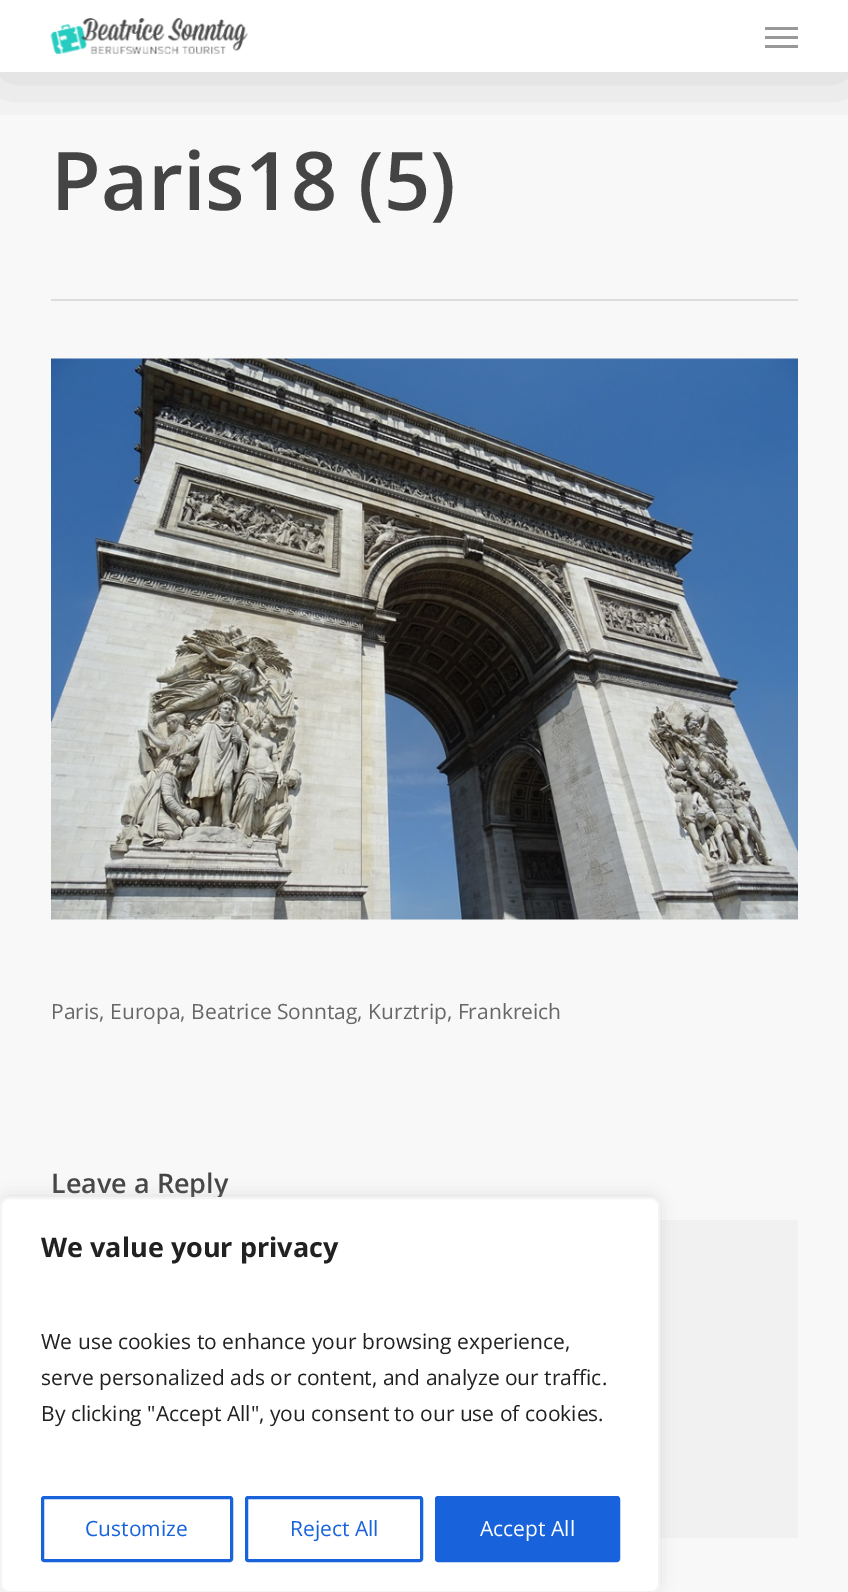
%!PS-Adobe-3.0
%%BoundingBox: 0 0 848 1592
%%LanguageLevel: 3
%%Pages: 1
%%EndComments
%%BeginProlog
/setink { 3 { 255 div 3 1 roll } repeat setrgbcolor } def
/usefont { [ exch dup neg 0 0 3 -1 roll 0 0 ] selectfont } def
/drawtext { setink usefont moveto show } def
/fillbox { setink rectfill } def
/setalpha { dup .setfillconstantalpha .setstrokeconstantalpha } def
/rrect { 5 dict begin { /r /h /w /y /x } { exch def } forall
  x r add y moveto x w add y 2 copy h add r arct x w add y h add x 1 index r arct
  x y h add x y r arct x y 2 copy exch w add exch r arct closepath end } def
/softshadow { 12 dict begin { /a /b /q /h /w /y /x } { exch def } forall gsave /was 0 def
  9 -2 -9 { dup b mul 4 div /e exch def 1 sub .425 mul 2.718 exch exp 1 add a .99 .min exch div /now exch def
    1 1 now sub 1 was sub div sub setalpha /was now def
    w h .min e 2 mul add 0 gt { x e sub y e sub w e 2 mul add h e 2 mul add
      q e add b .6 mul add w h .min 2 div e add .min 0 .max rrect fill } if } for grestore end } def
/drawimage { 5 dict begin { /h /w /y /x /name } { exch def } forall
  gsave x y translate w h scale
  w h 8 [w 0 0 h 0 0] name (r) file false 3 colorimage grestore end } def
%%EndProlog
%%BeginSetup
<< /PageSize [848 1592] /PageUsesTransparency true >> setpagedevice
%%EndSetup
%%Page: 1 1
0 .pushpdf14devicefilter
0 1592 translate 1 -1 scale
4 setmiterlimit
0 0 848 1592 255 255 255 fillbox
0 72 848 1520 248 248 248 fillbox
gsave
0 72 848 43 rectclip
0 0 0 setink
0 5 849 72 0 34 0.15 softshadow
grestore
(assets/img1.rgb) 50 18 198 36 drawimage
765 27 33 3 153 153 153 fillbox
765 45 33 3 153 153 153 fillbox
765 36 33 3 153 153 153 fillbox
51 299 747 2 221 221 221 fillbox
(Paris18 \(5\)) 51 210 /OpenSans-SemiBold 81 68 68 68 drawtext
(assets/img2.rgb) 51 358 747 562 drawimage
(Paris, Europa, Beatrice Sonntag, Kurztrip, Frankreich) 51 1019 /OpenSans-Regular 21 103 103 103 drawtext
(Leave a Reply) 51 1193 /OpenSans-SemiBold 27 68 68 68 drawtext
660 1220 138 318 241 241 241 fillbox
172 171 171 setink
0 1196 660 396 9 7.5 0.3 softshadow
255 255 255 setink
1 1198 658 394 8 rrect gsave fill grestore
244 244 244 setink
2 setlinewidth
stroke
(We value your privacy) 41 1257 /OpenSans-Bold 27 33 33 33 drawtext
(We use cookies to enhance your browsing experience,) 41 1349 /OpenSans-Regular 21 33 33 33 drawtext
(serve personalized ads or content, and analyze our traffic.) 41 1385 /OpenSans-Regular 21 33 33 33 drawtext
(By clicking "Accept All", you consent to our use of cookies.) 41 1421 /OpenSans-Regular 21 33 33 33 drawtext
24 99 220 setink
3 setlinewidth
42.5 1497.5 189 63 1.5 rrect stroke
(Customize) 85 1536 /OpenSans-Regular 21 24 99 220 drawtext
246.5 1497.5 175 63 1.5 rrect stroke
(Reject All) 290 1536 /OpenSans-Regular 21 24 99 220 drawtext
436.5 1497.5 182 63 1.5 rrect gsave fill grestore
stroke
(Accept All) 480 1536 /OpenSans-Regular 21 255 255 255 drawtext
.poppdf14devicefilter showpage
%%EOF
